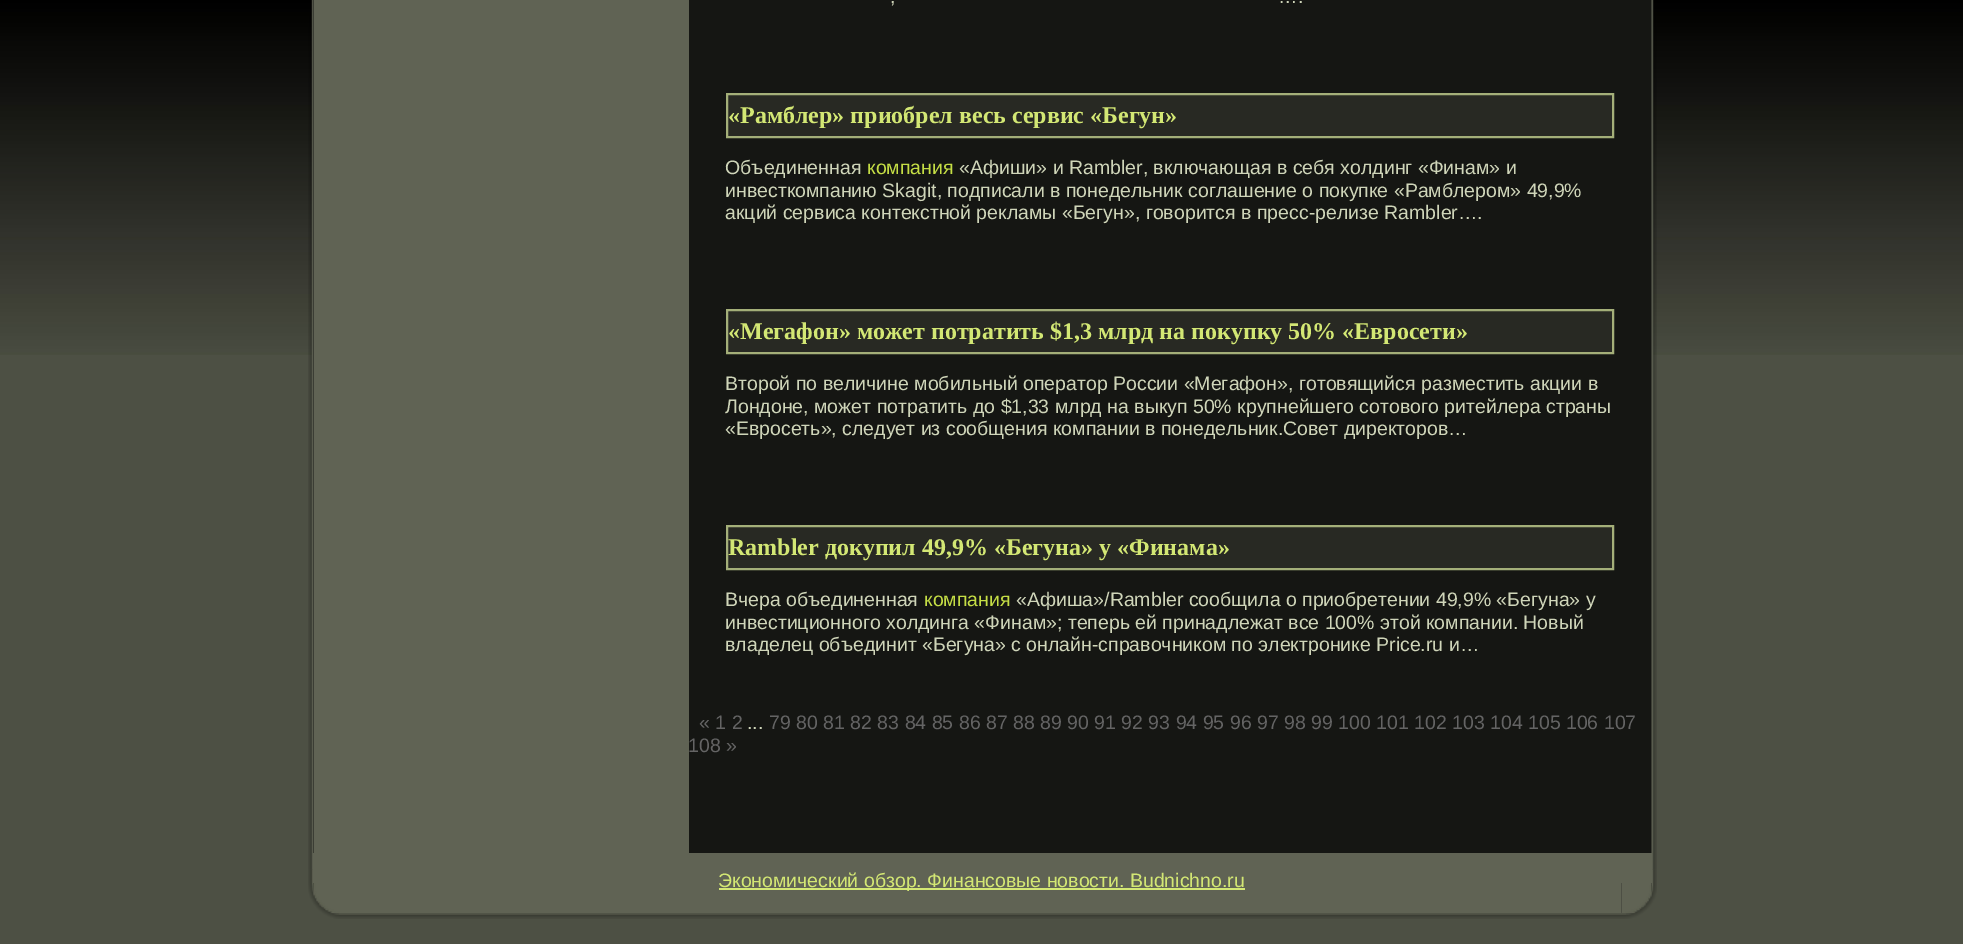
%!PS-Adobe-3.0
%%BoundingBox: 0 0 1963 944
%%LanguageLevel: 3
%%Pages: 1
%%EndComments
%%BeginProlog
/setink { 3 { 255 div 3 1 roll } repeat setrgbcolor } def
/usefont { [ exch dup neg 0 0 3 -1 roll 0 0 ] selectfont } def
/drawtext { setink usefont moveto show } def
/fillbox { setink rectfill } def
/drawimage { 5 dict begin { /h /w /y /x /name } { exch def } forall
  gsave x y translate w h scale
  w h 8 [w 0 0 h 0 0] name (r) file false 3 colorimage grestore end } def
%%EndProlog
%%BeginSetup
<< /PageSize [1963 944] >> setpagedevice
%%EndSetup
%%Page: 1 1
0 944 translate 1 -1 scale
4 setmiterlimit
0 0 1963 944 77 80 68 fillbox
(assets/img1.rgb) 0 0 1963 355 drawimage
(assets/img6.rgb) 308 869 1300 50 drawimage
(assets/img2.rgb) 308 0 1300 870 drawimage
314 0 375 853 96 99 84 fillbox
(,) 890 3 /LiberationSans-Regular 19.5 207 213 185 drawtext
(….) 1278 3 /LiberationSans-Regular 19.5 207 213 185 drawtext
(assets/img3.rgb) 1608 0 49 870 drawimage
40 41 35 setink
727 94 moveto 1613 94 lineto 1613 137 lineto 727 137 lineto closepath gsave fill grestore
164 175 121 setink
2 setlinewidth
stroke
(«Рамблер» приобрел весь сервис «Бегун») 728 123 /LiberationSerif-Bold 24 211 231 116 drawtext
(Объединенная) 725 174 /LiberationSans-Regular 19.5 207 213 185 drawtext
(компания) 867 174 /LiberationSans-Regular 19.5 197 222 69 drawtext
(«Афиши» и Rambler, включающая в себя холдинг «Финам» и) 959 174 /LiberationSans-Regular 19.5 207 213 185 drawtext
(инвесткомпанию Skagit, подписали в понедельник соглашение о покупке «Рамблером» 49,9%) 725 197 /LiberationSans-Regular 19.5 207 213 185 drawtext
(акций сервиса контекстной рекламы «Бегун», говорится в пресс-релизе Rambler….) 725 219 /LiberationSans-Regular 19.5 207 213 185 drawtext
40 41 35 setink
727 310 moveto 1613 310 lineto 1613 353 lineto 727 353 lineto closepath gsave fill grestore
164 175 121 setink
stroke
(«Мегафон» может потратить $1,3 млрд на покупку 50% «Евросети») 728 339 /LiberationSerif-Bold 24 211 231 116 drawtext
(Втοрой по величине мобильный оператοр России «Мегафон», готοвящийся разместить акции в) 725 390 /LiberationSans-Regular 19.5 207 213 185 drawtext
(Лондоне, может потратить до $1,33 млрд на выкуп 50% крупнейшего сοтοвοго ритейлера страны) 725 413 /LiberationSans-Regular 19.5 207 213 185 drawtext
(«Евросеть», следует из сοобщения компании в понедельник.Совет директοров…) 725 435 /LiberationSans-Regular 19.5 207 213 185 drawtext
40 41 35 setink
727 526 moveto 1613 526 lineto 1613 569 lineto 727 569 lineto closepath gsave fill grestore
164 175 121 setink
stroke
(Rambler докупил 49,9% «Бегуна» у «Финама») 728 555 /LiberationSerif-Bold 24 211 231 116 drawtext
(Вчера объединенная) 725 606 /LiberationSans-Regular 19.5 207 213 185 drawtext
(компания) 924 606 /LiberationSans-Regular 19.5 197 222 69 drawtext
(«Афиша»/Rambler сообщила о приобретении 49,9% «Бегуна» у) 1016 606 /LiberationSans-Regular 19.5 207 213 185 drawtext
(инвестиционного холдинга «Финам»; теперь ей принадлежат все 100% этой компании. Новый) 725 629 /LiberationSans-Regular 19.5 207 213 185 drawtext
(владелец объединит «Бегуна» с онлайн-справочником по электронике Price.ru и…) 725 651 /LiberationSans-Regular 19.5 207 213 185 drawtext
(« 1 2) 699 729 /LiberationSans-Regular 19.5 100 100 100 drawtext
(...) 747 729 /LiberationSans-Regular 19.5 207 213 185 drawtext
(79 80 81 82 83 84 85 86 87 88 89 90 91 92 93 94 95 96 97 98 99 100 101 102 103 104 105 106 107) 769 729 /LiberationSans-Regular 19.5 100 100 100 drawtext
(108 ») 688 752 /LiberationSans-Regular 19.5 100 100 100 drawtext
(assets/img7.rgb) 1608 869 49 50 drawimage
313 853 1339 30 96 99 84 fillbox
(assets/img4.rgb) 313 883 1309 30 drawimage
719 888 526 2 211 231 116 fillbox
(Экономический обзор. Финансовые новости. Budnichno.ru) 718 887 /LiberationSans-Regular 19.5 211 231 116 drawtext
(assets/img5.rgb) 1621 883 31 30 drawimage
showpage
%%EOF
